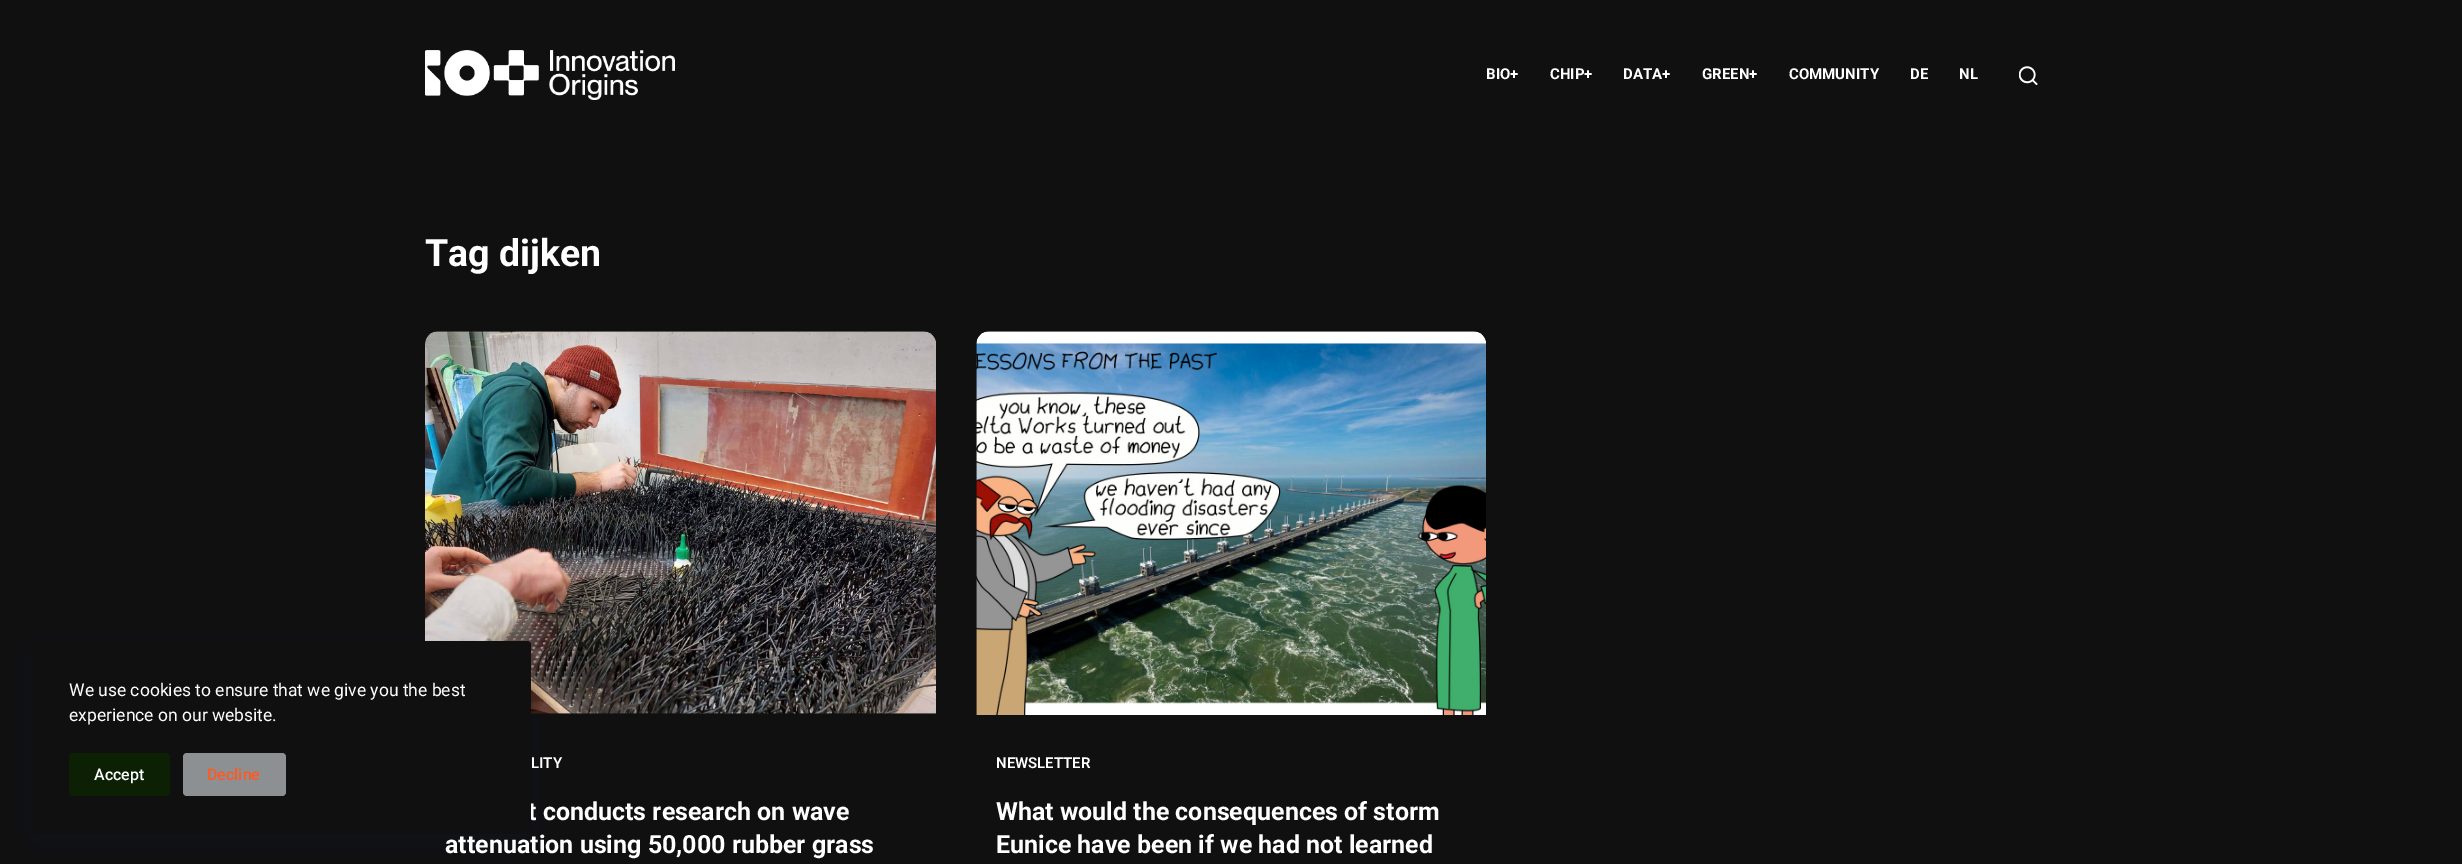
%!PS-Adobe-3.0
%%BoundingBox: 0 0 2462 864
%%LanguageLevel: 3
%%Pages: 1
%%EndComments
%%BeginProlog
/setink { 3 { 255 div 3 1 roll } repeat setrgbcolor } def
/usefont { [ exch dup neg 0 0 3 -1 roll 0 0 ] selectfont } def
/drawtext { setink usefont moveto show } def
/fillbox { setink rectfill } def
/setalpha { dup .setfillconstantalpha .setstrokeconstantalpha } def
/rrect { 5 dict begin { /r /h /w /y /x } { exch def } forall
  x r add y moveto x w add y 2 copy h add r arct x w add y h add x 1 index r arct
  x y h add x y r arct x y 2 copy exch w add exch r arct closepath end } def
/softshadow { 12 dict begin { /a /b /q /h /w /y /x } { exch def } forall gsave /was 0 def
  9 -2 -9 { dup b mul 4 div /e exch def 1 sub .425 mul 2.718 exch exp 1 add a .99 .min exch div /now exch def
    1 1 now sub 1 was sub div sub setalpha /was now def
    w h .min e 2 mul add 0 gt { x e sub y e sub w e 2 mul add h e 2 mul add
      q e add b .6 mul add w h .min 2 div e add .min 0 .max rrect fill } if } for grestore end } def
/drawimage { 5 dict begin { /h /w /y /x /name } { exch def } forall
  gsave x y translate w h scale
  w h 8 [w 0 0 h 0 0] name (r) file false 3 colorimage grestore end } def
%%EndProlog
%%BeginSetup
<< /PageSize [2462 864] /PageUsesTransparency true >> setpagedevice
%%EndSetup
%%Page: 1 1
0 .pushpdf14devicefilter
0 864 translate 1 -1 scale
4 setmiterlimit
0 0 2462 864 16 16 16 fillbox
(assets/img3.rgb) 425 331 511 383 drawimage
34 56 101 setink
38 654 487 180 0 19 0.15 softshadow
(t conducts research on wave) 528 820 /Roboto-Bold 25 255 255 255 drawtext
16 16 16 setink
31 641 500 193 4 rrect fill
(We use cookies to ensure that we give you the best) 69 696 /Roboto-Regular 17.5 255 255 255 drawtext
(experience on our website.) 69 721 /Roboto-Regular 17.5 255 255 255 drawtext
12 33 3 setink
69 753 101 43 4 rrect fill
(Accept) 94 780 /Roboto-Medium 16 255 255 255 drawtext
141 144 147 setink
183 753 103 43 4 rrect fill
(Decline) 207 780 /Roboto-Medium 16 255 88 35 drawtext
(assets/img1.rgb) 425 50 250 50 drawimage
(BIO+) 1486 79 /Roboto-Bold 15 255 255 255 drawtext
(CHIP+) 1550 79 /Roboto-Bold 15 255 255 255 drawtext
(DATA+) 1623 79 /Roboto-Bold 15 255 255 255 drawtext
(GREEN+) 1702 79 /Roboto-Bold 15 255 255 255 drawtext
(COMMUNITY) 1789 79 /Roboto-Bold 15 255 255 255 drawtext
(DE) 1910 79 /Roboto-Bold 15 255 255 255 drawtext
(NL) 1959 79 /Roboto-Bold 15 255 255 255 drawtext
(assets/img2.rgb) 2019 66 19 19 drawimage
(Tag dijken) 425 266 /Roboto-Bold 37.5 255 255 255 drawtext
(LITY) 531 768 /Roboto-SemiBold 15 255 255 255 drawtext
(attenuation using 50,000 rubber grass) 445 853 /Roboto-Bold 25 255 255 255 drawtext
(assets/img4.rgb) 976 331 510 384 drawimage
(NEWSLETTER) 996 768 /Roboto-SemiBold 15 255 255 255 drawtext
(What would the consequences of storm) 996 820 /Roboto-Bold 25 255 255 255 drawtext
(Eunice have been if we had not learned) 996 853 /Roboto-Bold 25 255 255 255 drawtext
.poppdf14devicefilter showpage
%%EOF
